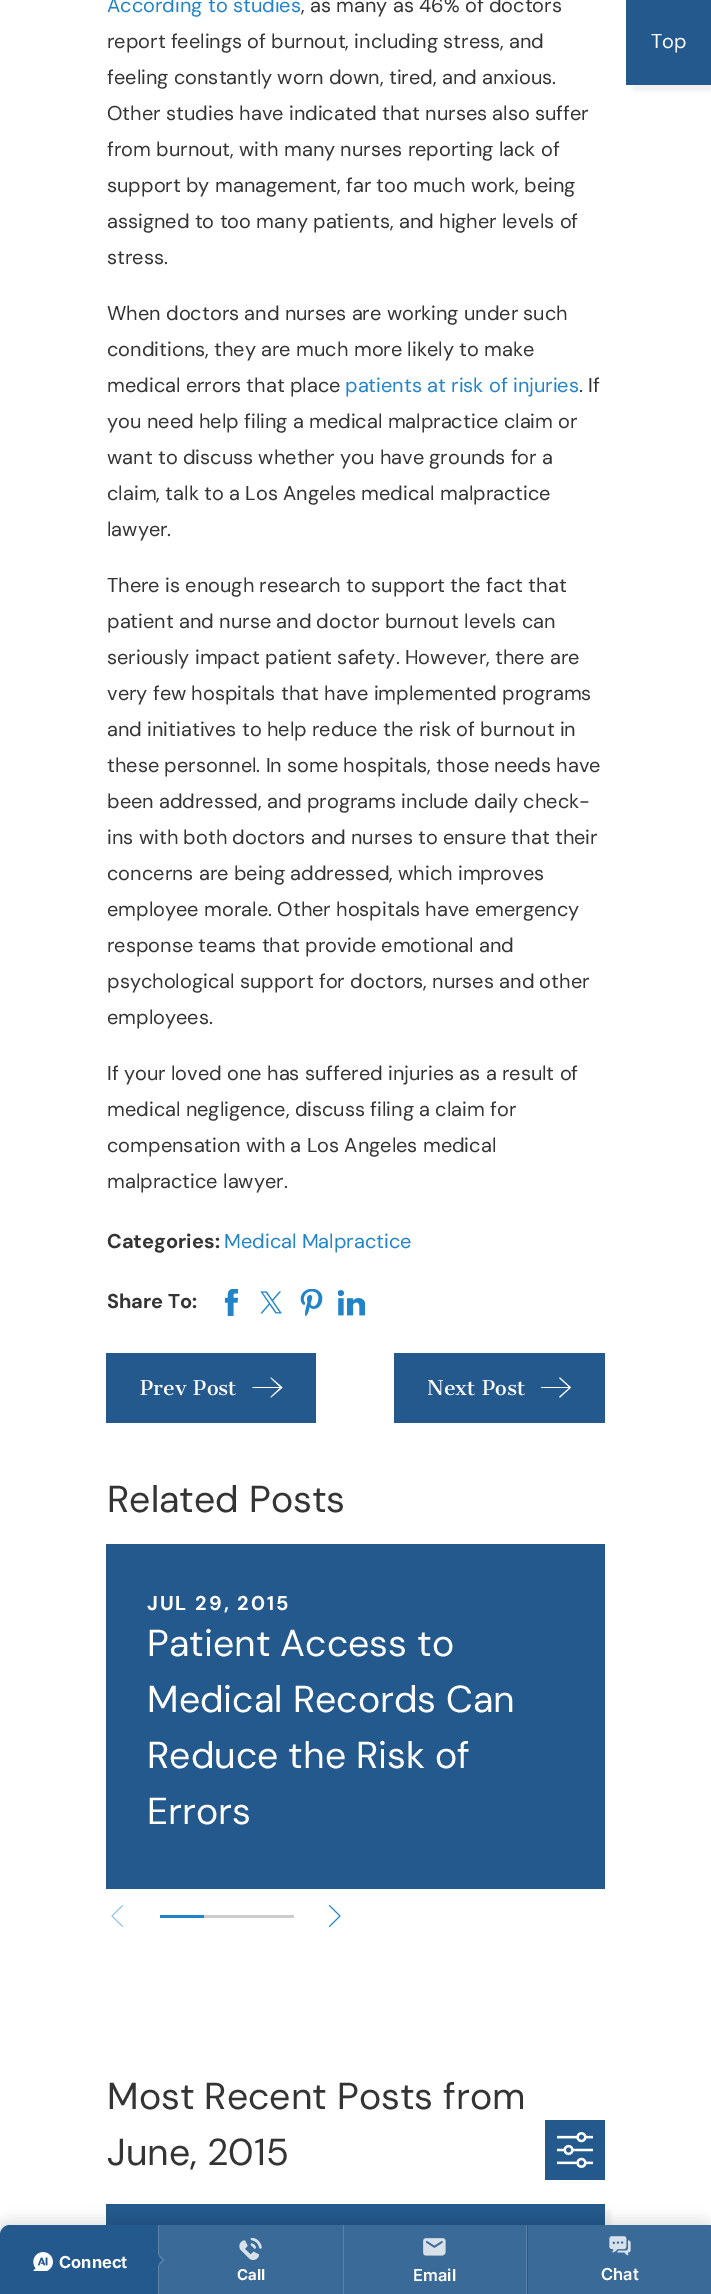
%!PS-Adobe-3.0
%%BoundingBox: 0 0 711 2294
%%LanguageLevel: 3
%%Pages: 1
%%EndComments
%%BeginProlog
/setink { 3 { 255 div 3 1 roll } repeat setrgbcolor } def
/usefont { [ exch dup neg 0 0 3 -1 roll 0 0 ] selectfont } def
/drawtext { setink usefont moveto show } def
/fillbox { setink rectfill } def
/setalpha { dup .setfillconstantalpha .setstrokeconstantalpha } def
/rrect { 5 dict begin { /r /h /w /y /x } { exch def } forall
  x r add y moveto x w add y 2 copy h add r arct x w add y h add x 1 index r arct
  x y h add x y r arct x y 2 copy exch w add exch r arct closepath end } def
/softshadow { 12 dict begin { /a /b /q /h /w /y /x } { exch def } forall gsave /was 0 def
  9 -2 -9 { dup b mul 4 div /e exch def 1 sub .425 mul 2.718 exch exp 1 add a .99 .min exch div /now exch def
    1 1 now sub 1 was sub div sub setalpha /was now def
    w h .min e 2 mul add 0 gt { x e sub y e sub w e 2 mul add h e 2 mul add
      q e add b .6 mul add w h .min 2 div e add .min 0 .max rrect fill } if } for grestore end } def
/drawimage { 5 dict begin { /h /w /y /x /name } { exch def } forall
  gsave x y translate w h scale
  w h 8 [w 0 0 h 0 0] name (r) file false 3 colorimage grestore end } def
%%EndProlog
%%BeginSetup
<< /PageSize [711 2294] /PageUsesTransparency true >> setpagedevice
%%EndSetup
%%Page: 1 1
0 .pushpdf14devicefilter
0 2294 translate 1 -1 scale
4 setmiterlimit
0 0 711 2294 255 255 255 fillbox
(According to studies) 107 12 /DMSans-Regular 20 33 132 200 drawtext
(, as many as 46% of doctors) 301 12 /DMSans-Regular 20 52 52 52 drawtext
(report feelings of burnout, including stress, and) 107 48 /DMSans-Regular 20 52 52 52 drawtext
(feeling constantly worn down, tired, and anxious.) 107 84 /DMSans-Regular 20 52 52 52 drawtext
(Other studies have indicated that nurses also suffer) 107 120 /DMSans-Regular 20 52 52 52 drawtext
(from burnout, with many nurses reporting lack of) 107 156 /DMSans-Regular 20 52 52 52 drawtext
(support by management, far too much work, being) 107 192 /DMSans-Regular 20 52 52 52 drawtext
(assigned to too many patients, and higher levels of) 107 228 /DMSans-Regular 20 52 52 52 drawtext
(stress.) 107 264 /DMSans-Regular 20 52 52 52 drawtext
(When doctors and nurses are working under such) 107 320 /DMSans-Regular 20 52 52 52 drawtext
(conditions, they are much more likely to make) 107 356 /DMSans-Regular 20 52 52 52 drawtext
(medical errors that place) 107 392 /DMSans-Regular 20 52 52 52 drawtext
(patients at risk of injuries) 345 392 /DMSans-Regular 20 33 132 200 drawtext
(. If) 579 392 /DMSans-Regular 20 52 52 52 drawtext
(you need help filing a medical malpractice claim or) 107 428 /DMSans-Regular 20 52 52 52 drawtext
(want to discuss whether you have grounds for a) 107 464 /DMSans-Regular 20 52 52 52 drawtext
(claim, talk to a Los Angeles medical malpractice) 107 500 /DMSans-Regular 20 52 52 52 drawtext
(lawyer.) 107 536 /DMSans-Regular 20 52 52 52 drawtext
(There is enough research to support the fact that) 107 592 /DMSans-Regular 20 52 52 52 drawtext
(patient and nurse and doctor burnout levels can) 107 628 /DMSans-Regular 20 52 52 52 drawtext
(seriously impact patient safety. However, there are) 107 664 /DMSans-Regular 20 52 52 52 drawtext
(very few hospitals that have implemented programs) 107 700 /DMSans-Regular 20 52 52 52 drawtext
(and initiatives to help reduce the risk of burnout in) 107 736 /DMSans-Regular 20 52 52 52 drawtext
(these personnel. In some hospitals, those needs have) 107 772 /DMSans-Regular 20 52 52 52 drawtext
(been addressed, and programs include daily check-) 107 808 /DMSans-Regular 20 52 52 52 drawtext
(ins with both doctors and nurses to ensure that their) 107 844 /DMSans-Regular 20 52 52 52 drawtext
(concerns are being addressed, which improves) 107 880 /DMSans-Regular 20 52 52 52 drawtext
(employee morale. Other hospitals have emergency) 107 916 /DMSans-Regular 20 52 52 52 drawtext
(response teams that provide emotional and) 107 952 /DMSans-Regular 20 52 52 52 drawtext
(psychological support for doctors, nurses and other) 107 988 /DMSans-Regular 20 52 52 52 drawtext
(employees.) 107 1024 /DMSans-Regular 20 52 52 52 drawtext
(If your loved one has suffered injuries as a result of) 107 1080 /DMSans-Regular 20 52 52 52 drawtext
(medical negligence, discuss filing a claim for) 107 1116 /DMSans-Regular 20 52 52 52 drawtext
(compensation with a Los Angeles medical) 107 1152 /DMSans-Regular 20 52 52 52 drawtext
(malpractice lawyer.) 107 1188 /DMSans-Regular 20 52 52 52 drawtext
(Categories:) 107 1248 /DMSans-Bold 20 52 52 52 drawtext
(Medical Malpractice) 224 1248 /DMSans-Regular 20 33 132 200 drawtext
(Share To:) 107 1308 /DMSans-Bold 20 52 52 52 drawtext
(assets/img1.rgb) 224 1289 14 27 drawimage
(assets/img2.rgb) 260 1291 22 23 drawimage
(assets/img3.rgb) 300 1289 23 27 drawimage
(assets/img4.rgb) 338 1290 27 26 drawimage
106 1353 210 70 36 89 141 fillbox
(Prev Post) 140 1395 /CantataOne-Regular 20 255 255 255 drawtext
270.5 1397 moveto 271 1397.5 lineto 282.5 1387.5 lineto 271 1377.5 lineto 270.5 1378 lineto 280 1387 lineto 252.5 1387 lineto 252.5 1388 lineto 280 1388 lineto closepath fill
394 1353 211 70 36 89 141 fillbox
(Next Post) 427 1395 /CantataOne-Regular 20 255 255 255 drawtext
559 1397 moveto 560 1397.5 lineto 571 1387.5 lineto 560 1377.5 lineto 559 1378 lineto 569 1387 lineto 541 1387 lineto 541 1388 lineto 569 1388 lineto closepath fill
(Related Posts) 107 1512 /DMSans-Regular 37.5 52 52 52 drawtext
106 1544 499 345 36 89 141 fillbox
/DMSans-Bold 20 usefont
255 255 255 setink
147 1610 moveto 2 0 (JUL 29, 2015) ashow
(Patient Access to) 147 1656 /DMSans-Regular 37.5 255 255 255 drawtext
(Medical Records Can) 147 1712 /DMSans-Regular 37.5 255 255 255 drawtext
(Reduce the Risk of) 147 1768 /DMSans-Regular 37.5 255 255 255 drawtext
(Errors) 147 1824 /DMSans-Regular 37.5 255 255 255 drawtext
(assets/img5.rgb) 111 1905 12 22 drawimage
160 1915 44 3 33 132 200 fillbox
204 1915 90 3 204 204 204 fillbox
(assets/img6.rgb) 328 1905 13 22 drawimage
(Most Recent Posts from) 107 2109 /DMSans-Regular 37.5 52 52 52 drawtext
(June, 2015) 107 2165 /DMSans-Regular 37.5 52 52 52 drawtext
545 2120 60 60 36 89 141 fillbox
(assets/img7.rgb) 557 2132 36 36 drawimage
0 0 0 setink
113 2210 498 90 0 2 0.05 softshadow
106 2204 499 21 36 89 141 fillbox
0 0 0 setink
633 6 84 85 0 2 0.05 softshadow
626 0 85 85 36 89 141 fillbox
(Top) 651 48 /DMSans-Regular 20 255 255 255 drawtext
0 0 0 setink
-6 2219 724 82 16 6 0.1 softshadow
36 89 141 setink
10 2225 moveto 711 2225 lineto 711 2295 lineto 0 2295 lineto 0 2235 lineto 0 2229.5 4.5 2225 10 2225 curveto closepath fill
158 2225 1 69 91 131 170 fillbox
(assets/img8.rgb) 33 2252 20 19 drawimage
(Connect) 59 2268 /Inter-Bold 16.5 255 255 255 drawtext
159 2225 184 69 58 106 152 fillbox
36 89 141 setink
159 2254.5 moveto 164.5 2260 lineto 159 2265.5 lineto 154 2260 lineto closepath fill
0.25 setalpha
255 255 255 setink
159 2254.5 moveto 164.5 2260 lineto 162.5 2260 lineto 159 2256.5 lineto closepath 164.5 2260 moveto 159 2265.5 lineto 159 2263.5 lineto 162.5 2260 lineto closepath fill
1 setalpha
343 2225 1 69 91 131 170 fillbox
(assets/img9.rgb) 239 2238 23 22 drawimage
(Call) 237 2280 /Inter-Bold 15 255 255 255 drawtext
526 2225 1 69 91 131 170 fillbox
344 2225 182 69 58 106 152 fillbox
(assets/img10.rgb) 423 2238 23 18 drawimage
(Email) 413 2281 /Inter-SemiBold 16.5 255 255 255 drawtext
528 2225 183 69 58 106 152 fillbox
(assets/img11.rgb) 609 2236 22 20 drawimage
(Chat) 601 2280 /Inter-SemiBold 16.5 255 255 255 drawtext
.poppdf14devicefilter showpage
%%EOF
